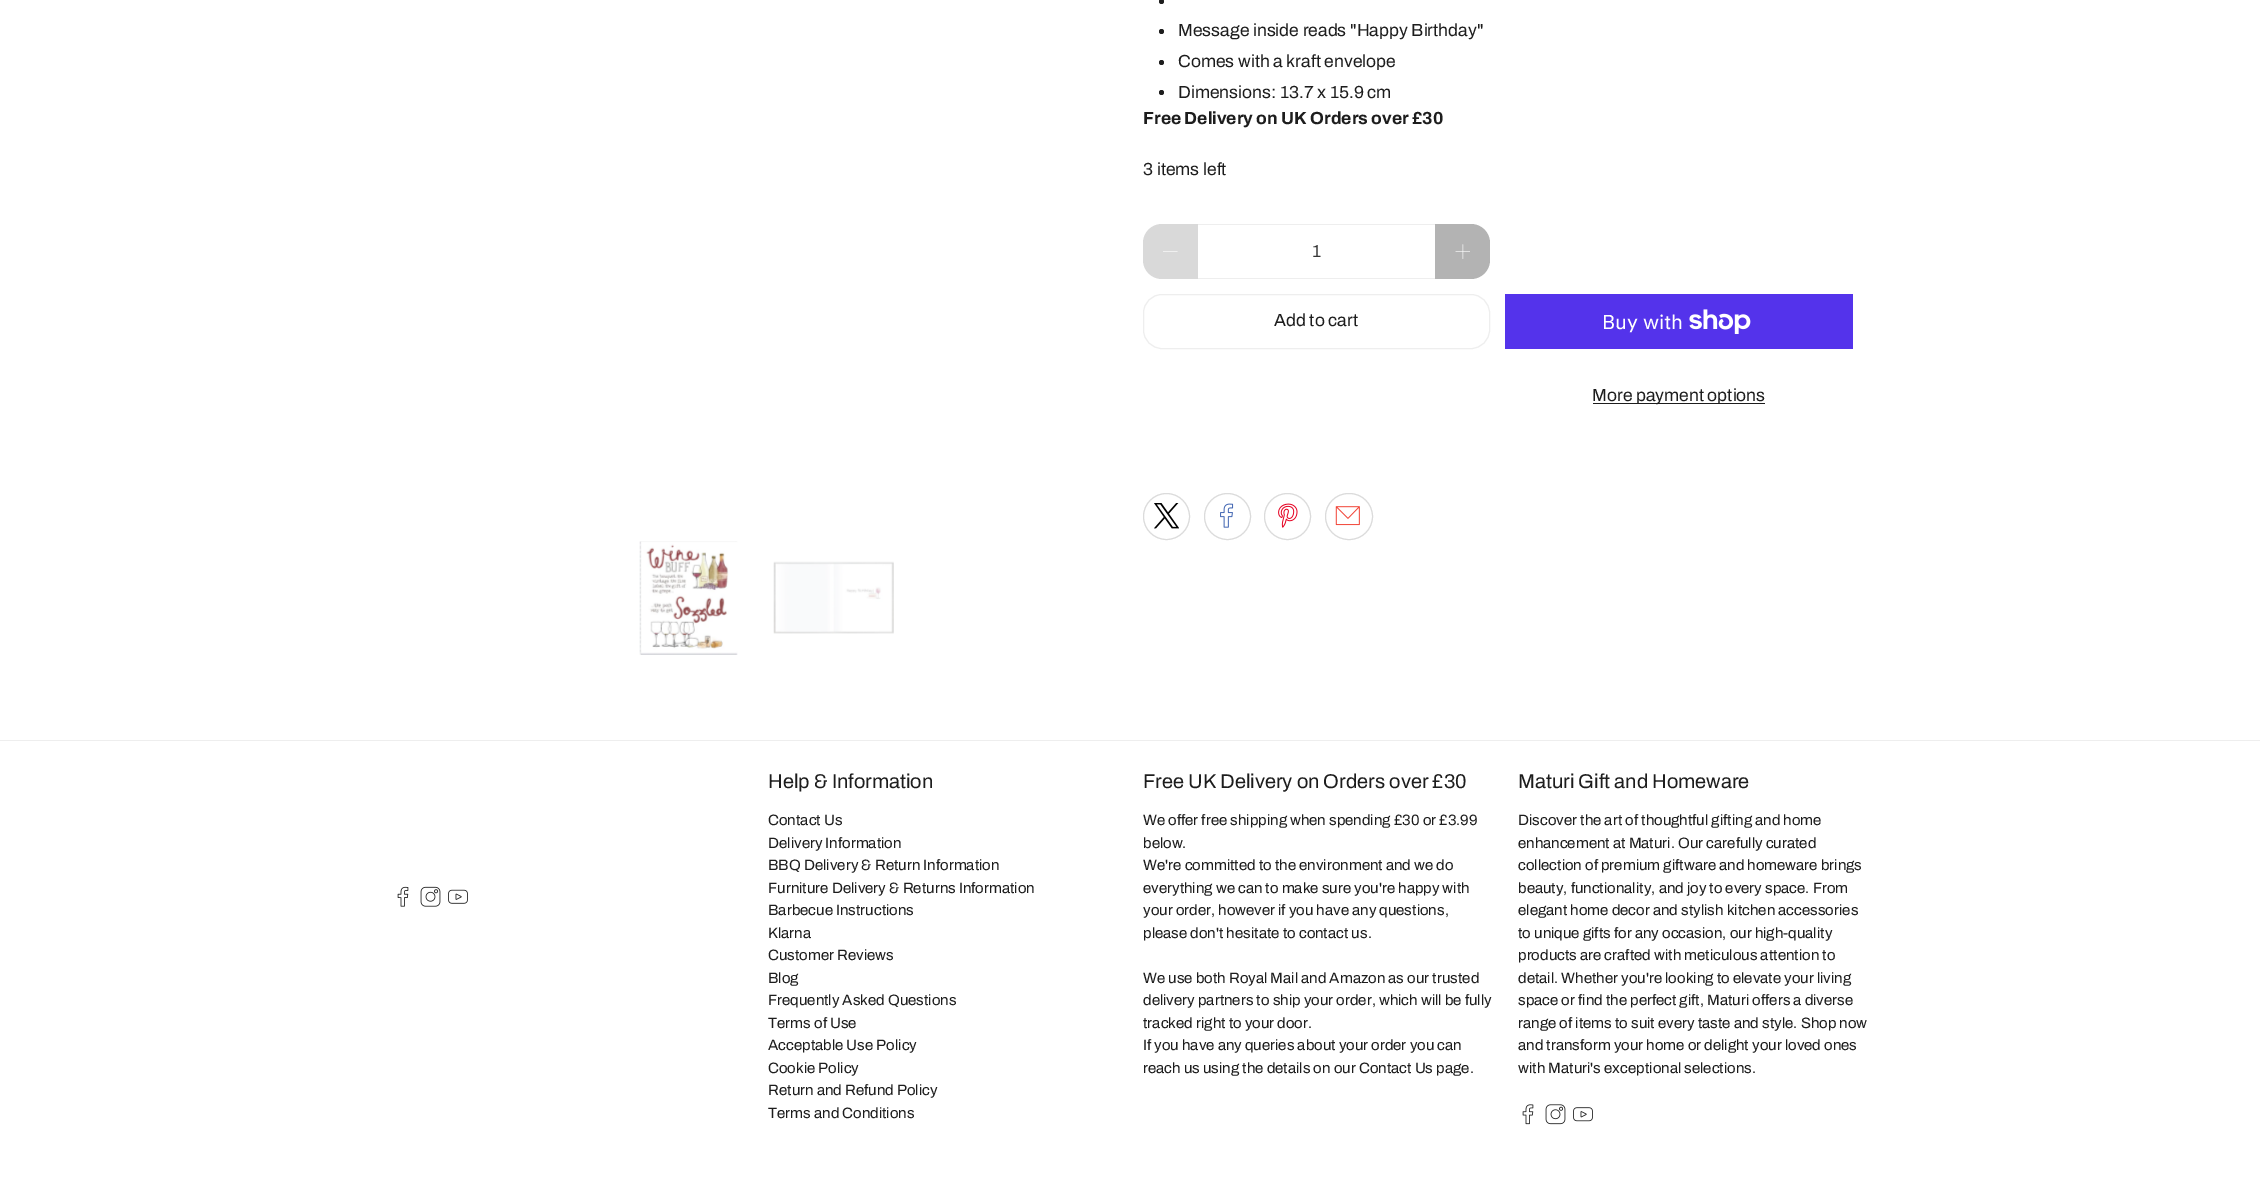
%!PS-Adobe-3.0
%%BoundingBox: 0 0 2260 1177
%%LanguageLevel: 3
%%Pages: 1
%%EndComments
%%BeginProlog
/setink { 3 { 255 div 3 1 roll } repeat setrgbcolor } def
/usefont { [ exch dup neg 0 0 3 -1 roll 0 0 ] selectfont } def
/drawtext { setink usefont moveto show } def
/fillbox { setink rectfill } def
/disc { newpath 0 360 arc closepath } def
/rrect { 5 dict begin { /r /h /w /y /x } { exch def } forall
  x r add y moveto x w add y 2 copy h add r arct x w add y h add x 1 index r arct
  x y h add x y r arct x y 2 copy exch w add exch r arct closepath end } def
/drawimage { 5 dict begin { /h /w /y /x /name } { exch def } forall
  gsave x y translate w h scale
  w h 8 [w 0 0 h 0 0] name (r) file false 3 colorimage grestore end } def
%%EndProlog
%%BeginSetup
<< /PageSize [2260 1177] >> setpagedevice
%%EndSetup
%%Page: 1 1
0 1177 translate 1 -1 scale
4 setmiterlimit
0 0 2260 1177 255 255 255 fillbox
29 29 29 setink
1161.5 1.5 2.5 disc fill
1161.5 31.5 2.5 disc fill
(Message inside reads "Happy Birthday") 1178 36 /Archivo-Regular 17.5 29 29 29 drawtext
1161.5 62.5 2.5 disc fill
(Comes with a kraft envelope) 1178 67 /Archivo-Regular 17.5 29 29 29 drawtext
1161.5 92.5 2.5 disc fill
(Dimensions: 13.7 x 15.9 cm) 1178 98 /Archivo-Regular 17.5 29 29 29 drawtext
(Free Delivery on UK Orders over £30) 1143 124 /Archivo-Bold 17.5 29 29 29 drawtext
(3 items left) 1143 175 /Archivo-Regular 17.5 29 29 29 drawtext
217 217 217 setink
1162 224 moveto 1198 224 lineto 1198 279 lineto 1162 279 lineto 1151.5 279 1143 270.5 1143 260 curveto 1143 243 lineto 1143 232.5 1151.5 224 1162 224 curveto closepath fill
(assets/img1.rgb) 1163 251 15 1 drawimage
1198 224 237 1 238 238 238 fillbox
1198 278 237 1 238 238 238 fillbox
(1) 1312 257 /Archivo-Regular 17.5 54 54 54 drawtext
179 179 179 setink
1435 224 moveto 1471 224 lineto 1481.5 224 1490 232.5 1490 243 curveto 1490 260 lineto 1490 270.5 1481.5 279 1471 279 curveto 1435 279 lineto closepath fill
(assets/img2.rgb) 1455 244 15 15 drawimage
238 238 238 setink
1143.5 294.5 346 54 18.5 rrect stroke
(Add to cart) 1274 326 /Archivo-Regular 17.5 29 29 29 drawtext
1505 294 348 55 84 51 235 fillbox
(Buy with) 1602 329 /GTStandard-Regular 20 255 255 255 drawtext
(assets/img3.rgb) 1689 309 62 25 drawimage
1593 403 172 1 29 29 29 fillbox
(More payment options) 1592 401 /Archivo-Regular 17.5 29 29 29 drawtext
219 219 219 setink
1166.5 516.5 23 disc stroke
(assets/img4.rgb) 1154 503 25 26 drawimage
1227.5 516.5 23 disc stroke
(assets/img5.rgb) 1220 503 14 25 drawimage
1287.5 516.5 23 disc stroke
(assets/img6.rgb) 1278 503 20 25 drawimage
1325.5 493.5 47 46 23 rrect stroke
(assets/img7.rgb) 1335 506 25 20 drawimage
(assets/img8.rgb) 639 541 99 114 drawimage
(assets/img9.rgb) 773 561 121 73 drawimage
0 740 2260 1 238 238 238 fillbox
(assets/img10.rgb) 397 886 12 21 drawimage
(assets/img11.rgb) 420 886 21 21 drawimage
(assets/img12.rgb) 448 889 20 15 drawimage
(Help & Information) 768 788 /Archivo-Regular 20 29 29 29 drawtext
(Contact Us) 768 825 /Archivo-Regular 15 29 29 29 drawtext
(Delivery Information) 768 848 /Archivo-Regular 15 29 29 29 drawtext
(BBQ Delivery & Return Information) 768 870 /Archivo-Regular 15 29 29 29 drawtext
(Furniture Delivery & Returns Information) 768 893 /Archivo-Regular 15 29 29 29 drawtext
(Barbecue Instructions) 768 915 /Archivo-Regular 15 29 29 29 drawtext
(Klarna) 768 938 /Archivo-Regular 15 29 29 29 drawtext
(Customer Reviews) 768 960 /Archivo-Regular 15 29 29 29 drawtext
(Blog) 768 983 /Archivo-Regular 15 29 29 29 drawtext
(Frequently Asked Questions) 768 1005 /Archivo-Regular 15 29 29 29 drawtext
(Terms of Use) 768 1028 /Archivo-Regular 15 29 29 29 drawtext
(Acceptable Use Policy) 768 1050 /Archivo-Regular 15 29 29 29 drawtext
(Cookie Policy) 768 1073 /Archivo-Regular 15 29 29 29 drawtext
(Return and Refund Policy) 768 1095 /Archivo-Regular 15 29 29 29 drawtext
(Terms and Conditions) 768 1118 /Archivo-Regular 15 29 29 29 drawtext
(Free UK Delivery on Orders over £30) 1143 788 /Archivo-Regular 20 29 29 29 drawtext
(We offer free shipping when spending £30 or £3.99) 1143 825 /Archivo-Regular 15 29 29 29 drawtext
(below.) 1143 848 /Archivo-Regular 15 29 29 29 drawtext
(We're committed to the environment and we do) 1143 870 /Archivo-Regular 15 29 29 29 drawtext
(everything we can to make sure you're happy with) 1143 893 /Archivo-Regular 15 29 29 29 drawtext
(your order, however if you have any questions,) 1143 915 /Archivo-Regular 15 29 29 29 drawtext
(please don't hesitate to contact us.) 1143 938 /Archivo-Regular 15 29 29 29 drawtext
(We use both Royal Mail and Amazon as our trusted) 1143 983 /Archivo-Regular 15 29 29 29 drawtext
(delivery partners to ship your order, which will be fully) 1143 1005 /Archivo-Regular 15 29 29 29 drawtext
(tracked right to your door.) 1143 1028 /Archivo-Regular 15 29 29 29 drawtext
(If you have any queries about your order you can) 1143 1050 /Archivo-Regular 15 29 29 29 drawtext
(reach us using the details on our Contact Us page.) 1143 1073 /Archivo-Regular 15 29 29 29 drawtext
(Maturi Gift and Homeware) 1518 788 /Archivo-Regular 20 29 29 29 drawtext
(Discover the art of thoughtful gifting and home) 1518 825 /Archivo-Regular 15 29 29 29 drawtext
(enhancement at Maturi. Our carefully curated) 1518 848 /Archivo-Regular 15 29 29 29 drawtext
(collection of premium giftware and homeware brings) 1518 870 /Archivo-Regular 15 29 29 29 drawtext
(beauty, functionality, and joy to every space. From) 1518 893 /Archivo-Regular 15 29 29 29 drawtext
(elegant home decor and stylish kitchen accessories) 1518 915 /Archivo-Regular 15 29 29 29 drawtext
(to unique gifts for any occasion, our high-quality) 1518 938 /Archivo-Regular 15 29 29 29 drawtext
(products are crafted with meticulous attention to) 1518 960 /Archivo-Regular 15 29 29 29 drawtext
(detail. Whether you're looking to elevate your living) 1518 983 /Archivo-Regular 15 29 29 29 drawtext
(space or find the perfect gift, Maturi offers a diverse) 1518 1005 /Archivo-Regular 15 29 29 29 drawtext
(range of items to suit every taste and style. Shop now) 1518 1028 /Archivo-Regular 15 29 29 29 drawtext
(and transform your home or delight your loved ones) 1518 1050 /Archivo-Regular 15 29 29 29 drawtext
(with Maturi's exceptional selections.) 1518 1073 /Archivo-Regular 15 29 29 29 drawtext
(assets/img13.rgb) 1522 1104 12 21 drawimage
(assets/img14.rgb) 1545 1104 21 21 drawimage
(assets/img15.rgb) 1573 1107 20 15 drawimage
showpage
%%EOF
